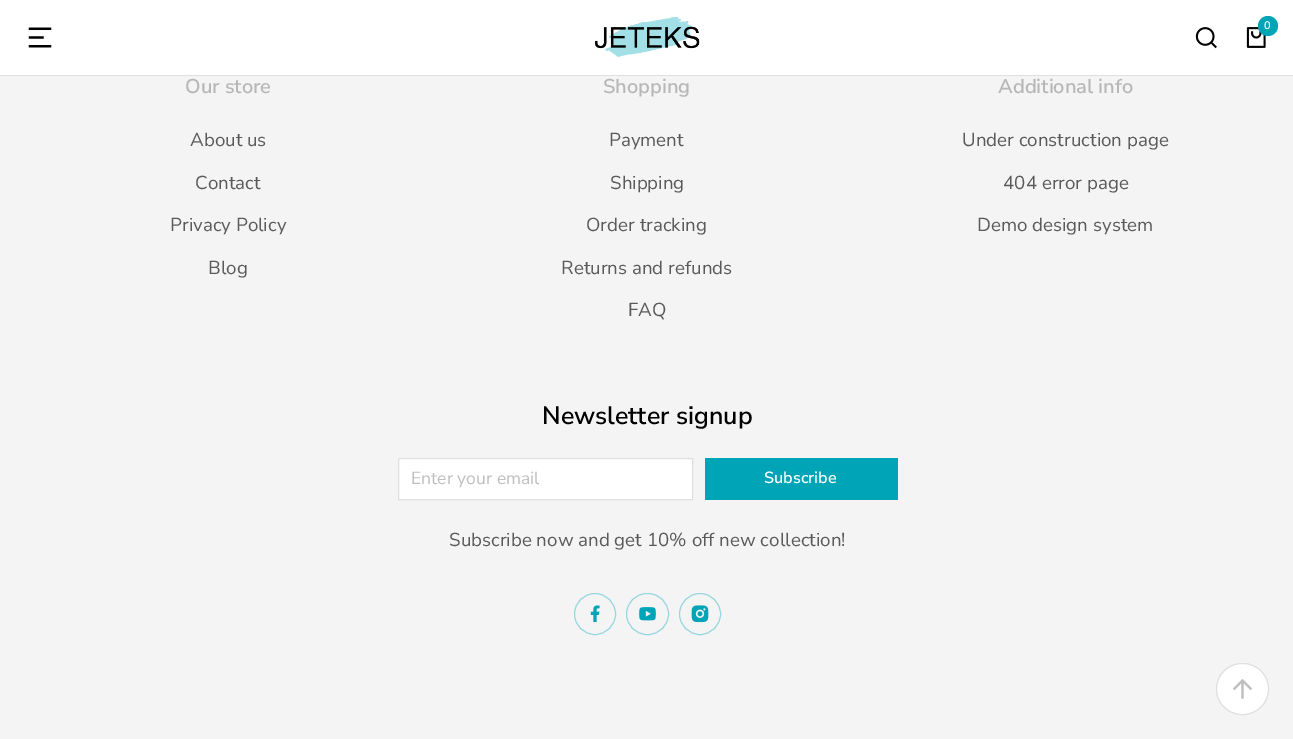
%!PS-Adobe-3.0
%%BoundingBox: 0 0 1293 739
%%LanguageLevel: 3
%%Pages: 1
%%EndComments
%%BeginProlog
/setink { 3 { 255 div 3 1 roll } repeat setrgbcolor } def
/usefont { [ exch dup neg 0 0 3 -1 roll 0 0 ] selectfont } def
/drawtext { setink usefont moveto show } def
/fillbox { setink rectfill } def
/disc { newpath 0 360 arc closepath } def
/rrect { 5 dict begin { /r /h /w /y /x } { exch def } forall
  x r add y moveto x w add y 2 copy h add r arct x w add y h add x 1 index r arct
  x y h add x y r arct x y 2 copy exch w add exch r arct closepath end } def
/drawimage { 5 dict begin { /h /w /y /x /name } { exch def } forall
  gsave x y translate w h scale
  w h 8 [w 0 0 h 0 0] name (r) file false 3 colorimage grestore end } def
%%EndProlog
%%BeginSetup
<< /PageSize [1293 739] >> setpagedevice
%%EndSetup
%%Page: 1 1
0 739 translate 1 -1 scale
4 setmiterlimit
0 0 1293 739 244 244 244 fillbox
0 0 1293 75 255 255 255 fillbox
0 75 1293 1 224 223 223 fillbox
(assets/img1.rgb) 595 17 105 40 drawimage
(assets/img2.rgb) 1246 27 20 21 drawimage
0 164 183 setink
1268 26 10 disc fill
(0) 1264 29 /NunitoSans-SemiBold 11 255 255 255 drawtext
(assets/img3.rgb) 1195 27 22 22 drawimage
(assets/img4.rgb) 28 27 24 21 drawimage
(Our store) 185 93 /NunitoSans-SemiBold 20 183 183 183 drawtext
(About us) 190 146 /NunitoSans-Regular 18.75 90 90 90 drawtext
(Contact) 195 189 /NunitoSans-Regular 18.75 90 90 90 drawtext
(Privacy Policy) 170 231 /NunitoSans-Regular 18.75 90 90 90 drawtext
(Blog) 208 274 /NunitoSans-Regular 18.75 90 90 90 drawtext
(Shopping) 603 93 /NunitoSans-SemiBold 20 183 183 183 drawtext
(Payment) 609 146 /NunitoSans-Regular 18.75 90 90 90 drawtext
(Shipping) 610 189 /NunitoSans-Regular 18.75 90 90 90 drawtext
(Order tracking) 586 231 /NunitoSans-Regular 18.75 90 90 90 drawtext
(Returns and refunds) 561 274 /NunitoSans-Regular 18.75 90 90 90 drawtext
(FAQ) 628 316 /NunitoSans-Regular 18.75 90 90 90 drawtext
(Additional info) 998 93 /NunitoSans-SemiBold 20 183 183 183 drawtext
(Under construction page) 962 146 /NunitoSans-Regular 18.75 90 90 90 drawtext
(404 error page) 1003 189 /NunitoSans-Regular 18.75 90 90 90 drawtext
(Demo design system) 977 231 /NunitoSans-Regular 18.75 90 90 90 drawtext
(Newsletter signup) 542 424 /NunitoSans-SemiBold 25 0 0 0 drawtext
255 255 255 setink
398.5 458.5 moveto 692.5 458.5 lineto 692.5 499.5 lineto 398.5 499.5 lineto closepath gsave fill grestore
224 223 223 setink
stroke
(Enter your email) 411 484 /NunitoSans-Regular 17.5 191 191 191 drawtext
705 458 193 42 0 164 183 fillbox
(Subscribe) 764 483 /NunitoSans-SemiBold 16.25 255 255 255 drawtext
(Subscribe now and get 10% off new collection!) 449 546 /NunitoSans-Regular 18.75 90 90 90 drawtext
151 215 223 setink
595 614 20.5 disc stroke
(assets/img5.rgb) 590 605 10 18 drawimage
626.5 593.5 42 41 20.5 rrect stroke
(assets/img6.rgb) 639 607 17 14 drawimage
700 614 20.5 disc stroke
(assets/img7.rgb) 691 605 18 18 drawimage
255 255 255 setink
1216.5 663.5 52 51 25.5 rrect gsave fill grestore
224 223 223 setink
stroke
(assets/img8.rgb) 1233 679 19 20 drawimage
showpage
%%EOF
